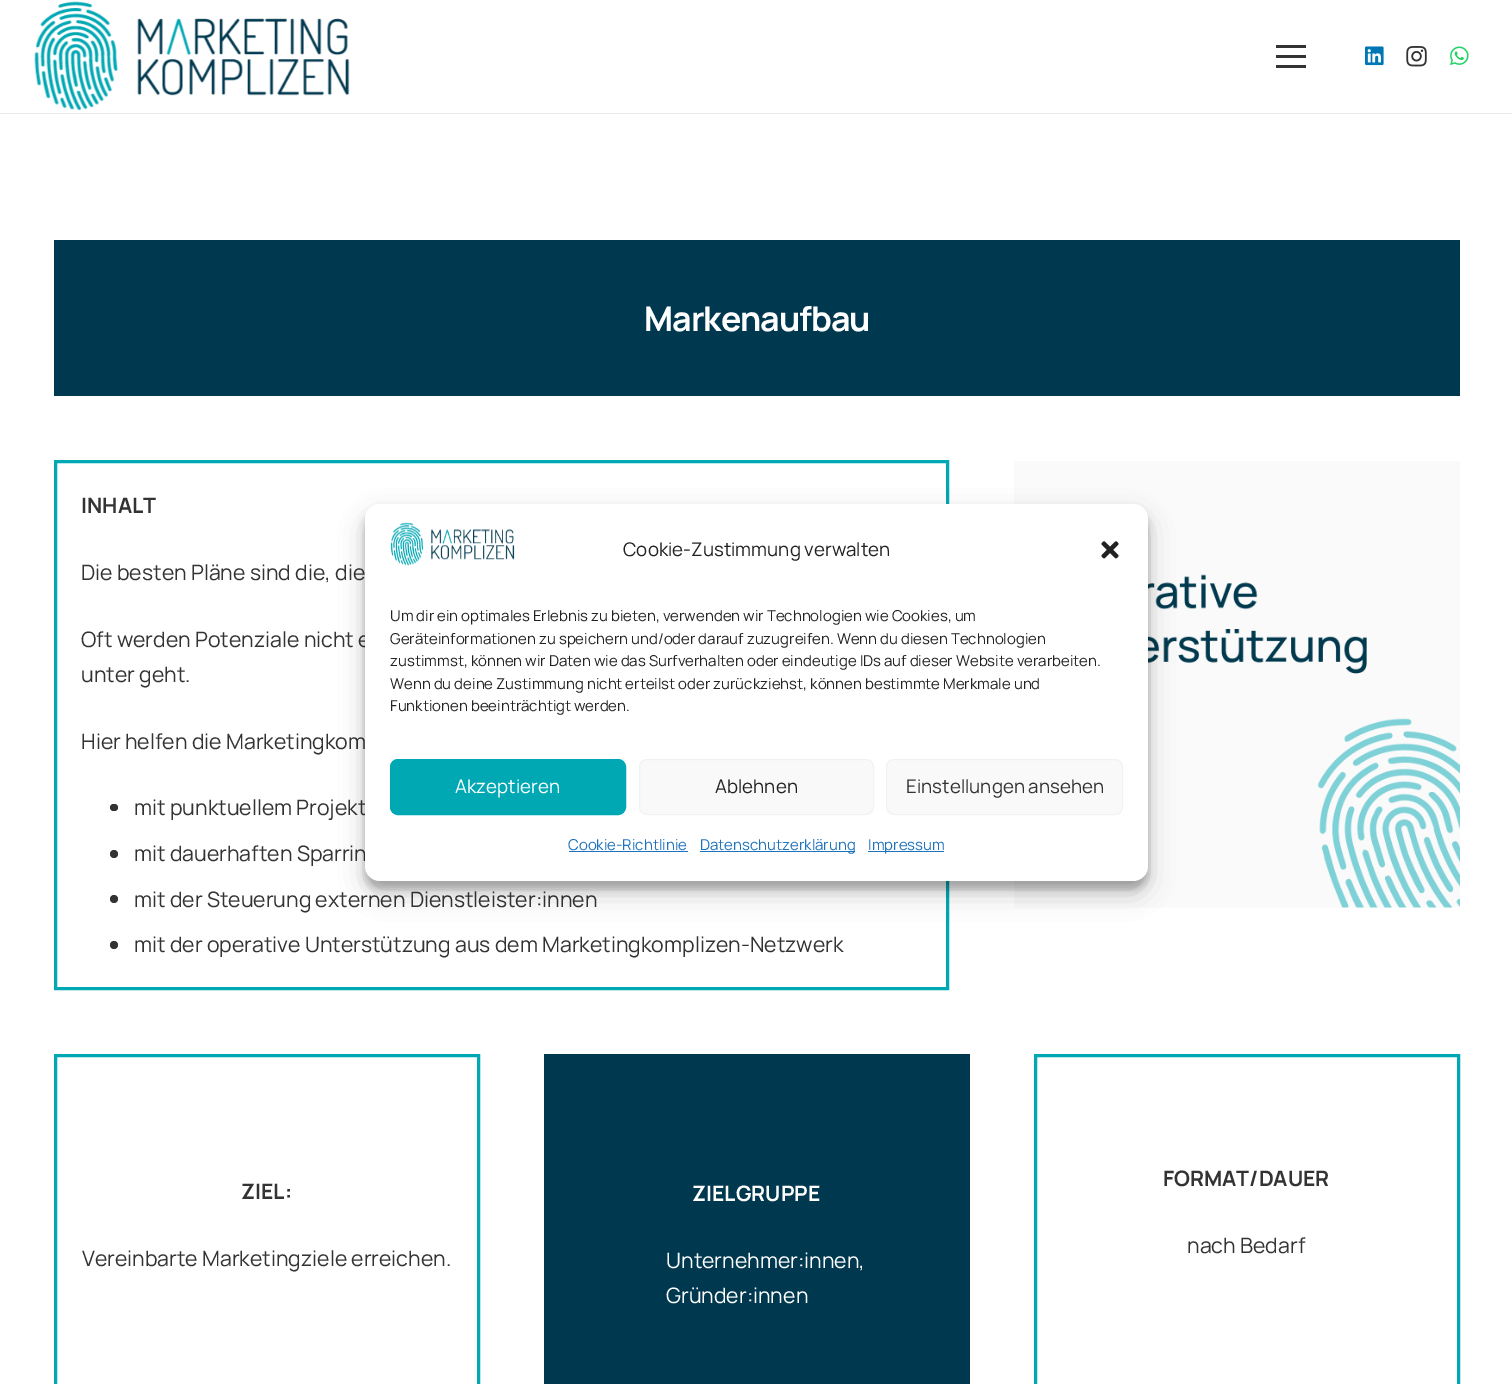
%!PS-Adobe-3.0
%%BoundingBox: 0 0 1512 1384
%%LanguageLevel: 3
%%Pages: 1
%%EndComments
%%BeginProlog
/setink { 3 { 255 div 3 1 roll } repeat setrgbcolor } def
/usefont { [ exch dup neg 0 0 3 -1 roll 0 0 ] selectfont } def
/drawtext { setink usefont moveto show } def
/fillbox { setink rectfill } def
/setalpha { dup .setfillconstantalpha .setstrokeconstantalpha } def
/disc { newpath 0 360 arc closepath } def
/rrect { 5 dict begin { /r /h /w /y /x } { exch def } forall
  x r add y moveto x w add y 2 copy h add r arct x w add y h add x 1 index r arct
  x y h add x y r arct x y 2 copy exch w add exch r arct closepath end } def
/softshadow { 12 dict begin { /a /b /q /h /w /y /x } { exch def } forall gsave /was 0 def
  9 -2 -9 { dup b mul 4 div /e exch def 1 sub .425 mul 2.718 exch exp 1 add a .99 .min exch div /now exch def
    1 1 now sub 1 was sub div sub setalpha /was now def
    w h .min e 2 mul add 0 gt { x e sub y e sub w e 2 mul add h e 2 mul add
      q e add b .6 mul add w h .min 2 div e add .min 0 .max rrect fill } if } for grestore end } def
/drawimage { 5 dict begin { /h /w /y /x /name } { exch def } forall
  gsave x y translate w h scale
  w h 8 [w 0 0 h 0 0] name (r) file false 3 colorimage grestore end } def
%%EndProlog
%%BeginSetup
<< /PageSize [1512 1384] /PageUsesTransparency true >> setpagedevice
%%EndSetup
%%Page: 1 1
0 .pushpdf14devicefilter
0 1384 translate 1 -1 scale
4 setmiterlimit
0 0 1512 1384 255 255 255 fillbox
235 235 235 setink
0 112 moveto 0 114 lineto 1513 114 lineto 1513 1 lineto 1512 1 lineto 1512 112 lineto closepath fill
0 112 1512 1 255 255 255 fillbox
(assets/img1.rgb) 34 1 316 110 drawimage
1276 55 30 3 51 51 51 fillbox
1276 45 30 3 51 51 51 fillbox
1276 65 30 3 51 51 51 fillbox
(assets/img2.rgb) 1365 46 19 20 drawimage
(assets/img3.rgb) 1406 46 21 21 drawimage
(assets/img4.rgb) 1450 46 19 19 drawimage
54 240 1406 156 0 57 79 fillbox
/Manrope-Bold 34 usefont
255 255 255 setink
644 331 moveto -1 0 (Markenaufbau) ashow
0 168 180 setink
3 setlinewidth
55.5 461.5 892 527 rectstroke
(INHALT) 81 513 /Manrope-Bold 21.25 51 51 51 drawtext
(Die besten Pläne sind die, die) 81 580 /Manrope-Regular 21.25 51 51 51 drawtext
(Oft werden Potenziale nicht e) 81 647 /Manrope-Regular 21.25 51 51 51 drawtext
(unter geht.) 81 682 /Manrope-Regular 21.25 51 51 51 drawtext
(Hier helfen die Marketingkom) 81 749 /Manrope-Regular 21.25 51 51 51 drawtext
110 804 8 7 3.5 rrect fill
(mit punktuellem Projekt) 134 815 /Manrope-Regular 21.25 51 51 51 drawtext
114 854 4 disc fill
(mit dauerhaften Sparrin) 134 861 /Manrope-Regular 21.25 51 51 51 drawtext
114 899 4 disc fill
(mit der Steuerung externen Dienstleister:innen) 134 907 /Manrope-Regular 21.25 51 51 51 drawtext
114 945 4 disc fill
(mit der operative Unterstützung aus dem Marketingkomplizen-Netzwerk) 134 952 /Manrope-Regular 21.25 51 51 51 drawtext
(assets/img5.rgb) 1014 461 446 447 drawimage
0 168 180 setink
55.5 1055.5 423 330 rectstroke
(ZIEL:) 241 1199 /Manrope-Bold 21.25 51 51 51 drawtext
(Vereinbarte Marketingziele erreichen.) 82 1266 /Manrope-Regular 21.25 51 51 51 drawtext
544 1054 426 330 0 57 79 fillbox
(ZIELGRUPPE) 692 1201 /Manrope-Bold 21.25 255 255 255 drawtext
(Unternehmer:innen,) 666 1268 /Manrope-Regular 21.25 255 255 255 drawtext
(Gründer:innen) 666 1303 /Manrope-Regular 21.25 255 255 255 drawtext
0 168 180 setink
1035.5 1055.5 423 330 rectstroke
(FORMAT/DAUER) 1163 1186 /Manrope-Bold 21.25 51 51 51 drawtext
(nach Bedarf) 1187 1253 /Manrope-Regular 21.25 51 51 51 drawtext
0 0 0 setink
365 511 783 378 15 4 0.23 softshadow
365 516 783 378 15 12.5 0.19 softshadow
255 255 255 setink
365 504 783 377 15 rrect fill
(assets/img6.rgb) 390 522 125 44 drawimage
(Cookie-Zustimmung verwalten) 623 556 /Manrope-Regular 18.75 34 34 34 drawtext
(assets/img7.rgb) 1101 541 18 18 drawimage
(Um dir ein optimales Erlebnis zu bieten, verwenden wir Technologien wie Cookies, um) 390 621 /Manrope-Regular 15 34 34 34 drawtext
(Geräteinformationen zu speichern und/oder darauf zuzugreifen. Wenn du diesen Technologien) 390 644 /Manrope-Regular 15 34 34 34 drawtext
(zustimmst, können wir Daten wie das Surfverhalten oder eindeutige IDs auf dieser Website verarbeiten.) 390 666 /Manrope-Regular 15 34 34 34 drawtext
(Wenn du deine Zustimmung nicht erteilst oder zurückziehst, können bestimmte Merkmale und) 390 689 /Manrope-Regular 15 34 34 34 drawtext
(Funktionen beeinträchtigt werden.) 390 711 /Manrope-Regular 15 34 34 34 drawtext
0 168 180 setink
390.5 759.5 235 55 7.5 rrect gsave fill grestore
1 setlinewidth
stroke
(Akzeptieren) 455 793 /Manrope-Regular 18.75 255 255 255 drawtext
249 249 249 setink
639.5 759.5 234 55 7.5 rrect gsave fill grestore
242 242 242 setink
stroke
(Ablehnen) 715 793 /Manrope-Regular 18.75 34 34 34 drawtext
249 249 249 setink
886.5 759.5 236 55 7.5 rrect gsave fill grestore
242 242 242 setink
stroke
(Einstellungen ansehen) 906 793 /Manrope-Regular 18.75 51 51 51 drawtext
(Cookie-Richtlinie) 568 850 /Manrope-Regular 15 30 115 190 drawtext
569 851 119 1 30 115 190 fillbox
700 851 155 1 30 115 190 fillbox
(Datenschutzerklärung) 700 850 /Manrope-Regular 15 30 115 190 drawtext
868 851 76 1 30 115 190 fillbox
(Impressum) 868 850 /Manrope-Regular 15 30 115 190 drawtext
.poppdf14devicefilter showpage
%%EOF
